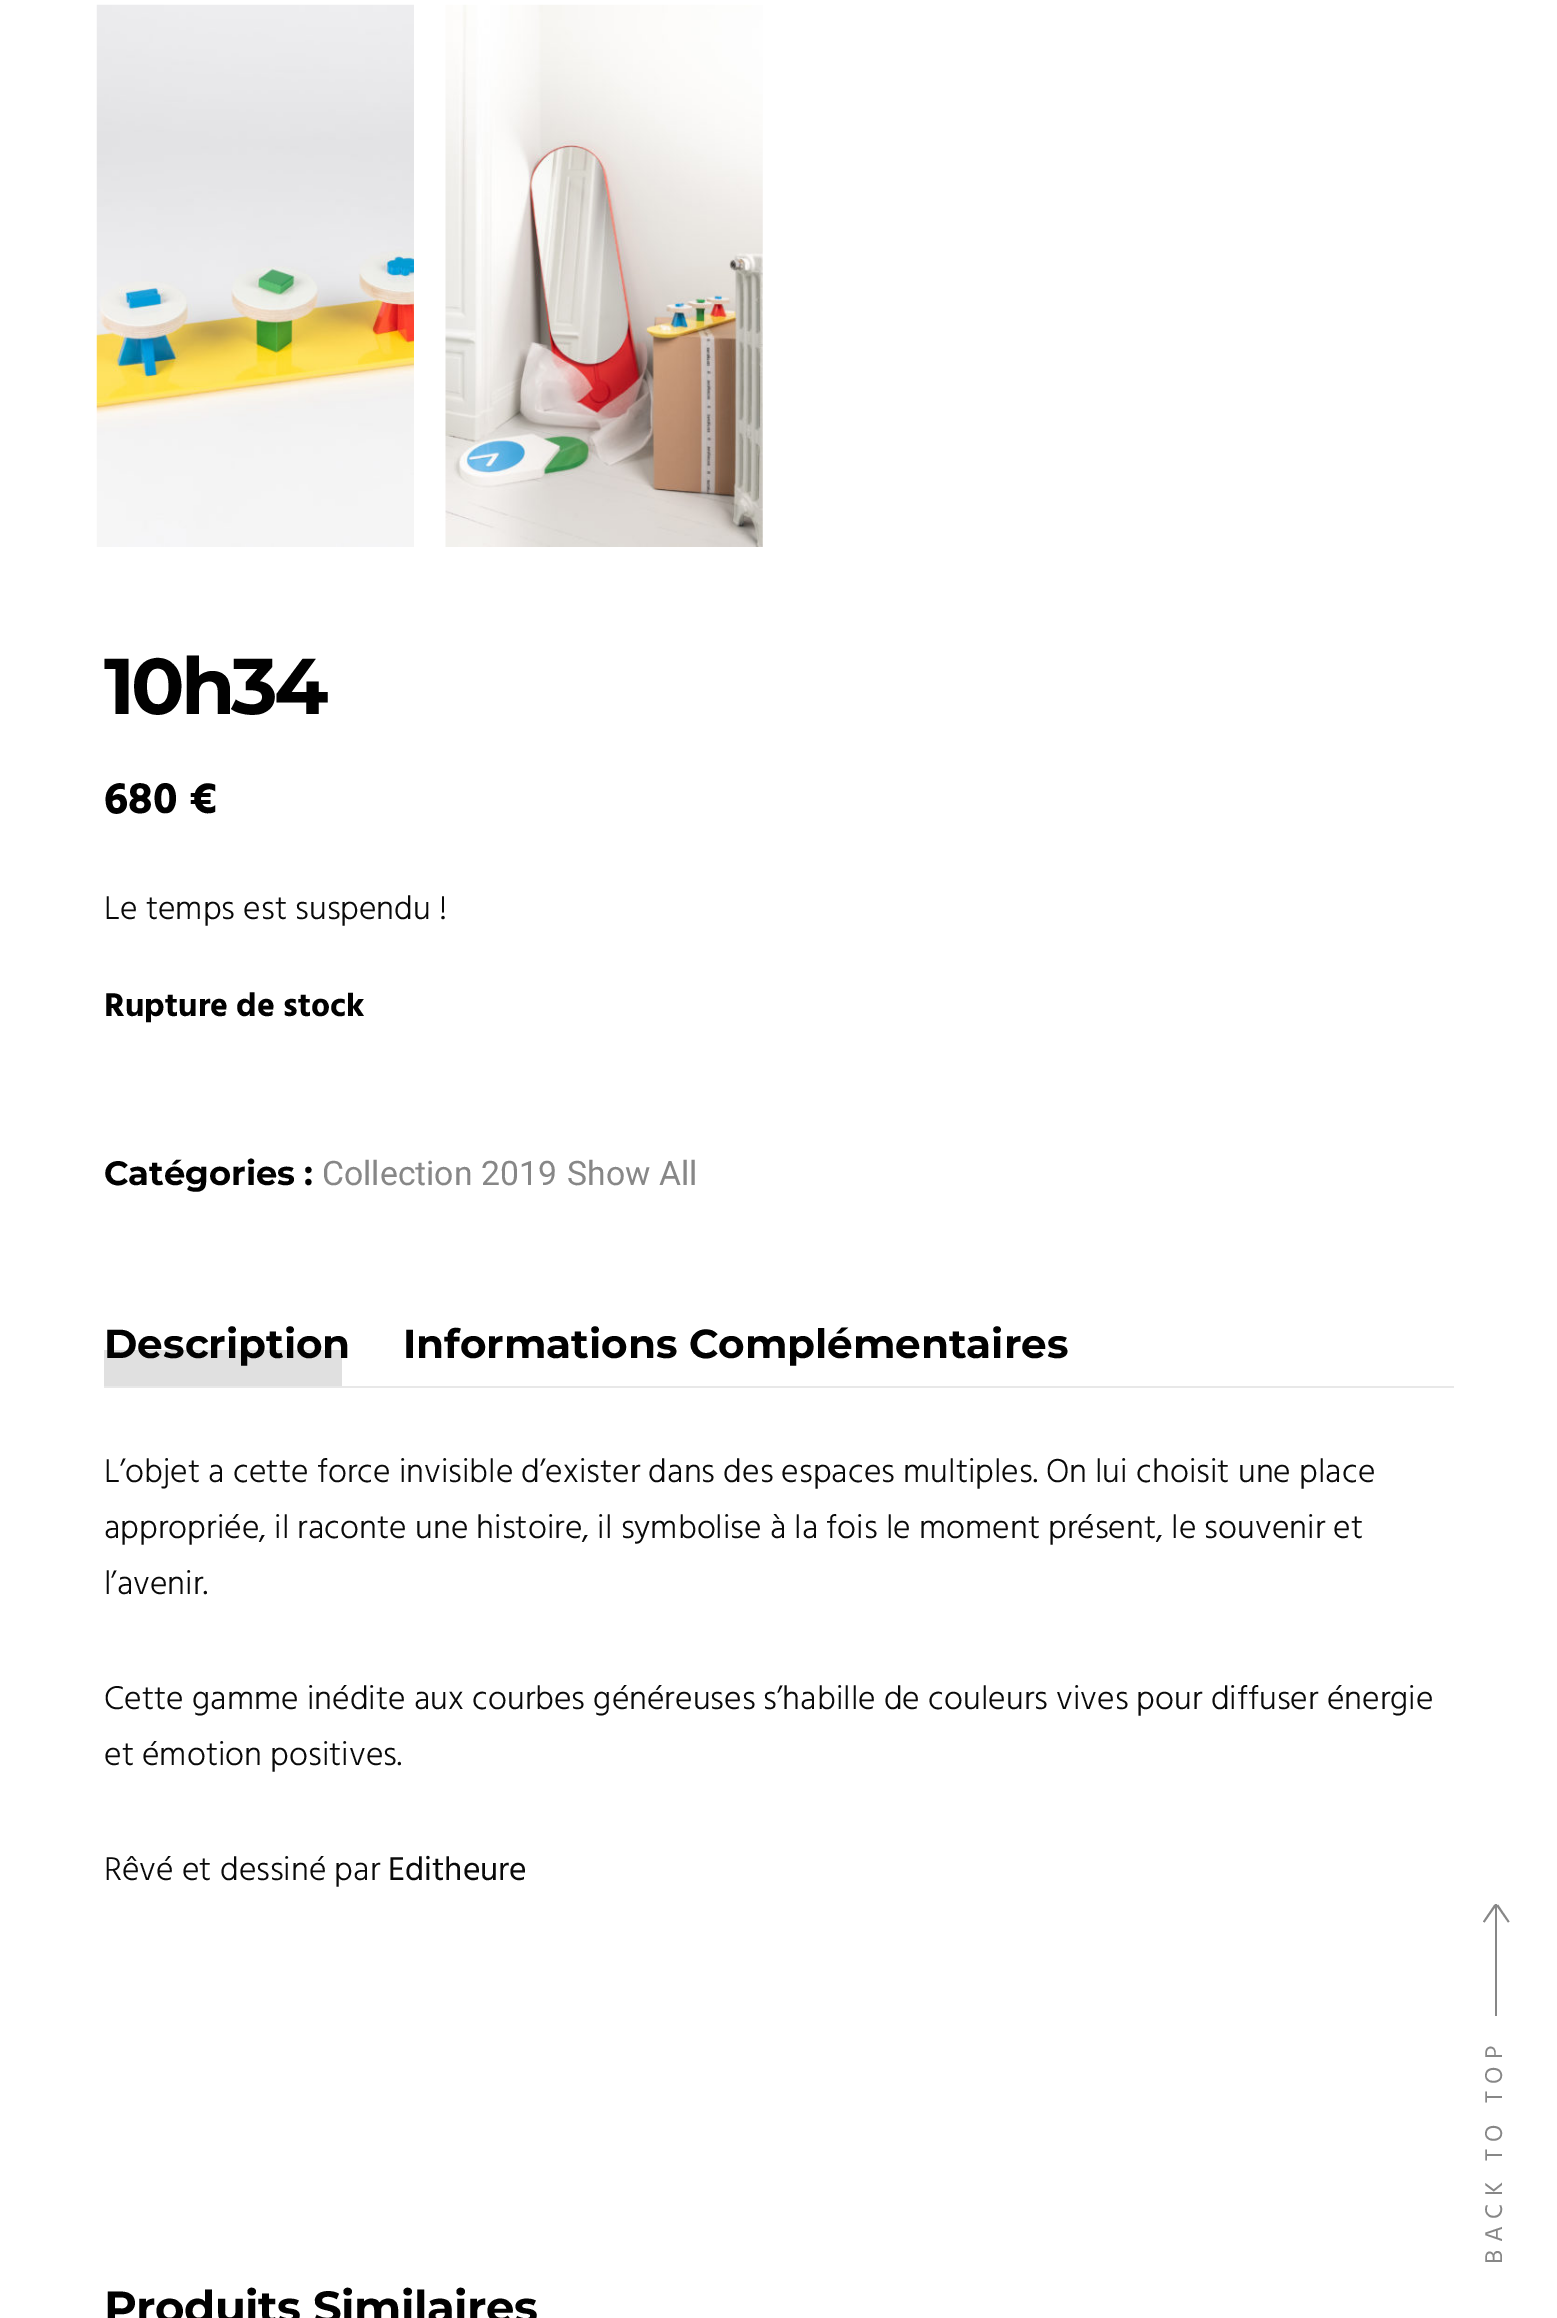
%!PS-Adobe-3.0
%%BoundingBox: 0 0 1557 2318
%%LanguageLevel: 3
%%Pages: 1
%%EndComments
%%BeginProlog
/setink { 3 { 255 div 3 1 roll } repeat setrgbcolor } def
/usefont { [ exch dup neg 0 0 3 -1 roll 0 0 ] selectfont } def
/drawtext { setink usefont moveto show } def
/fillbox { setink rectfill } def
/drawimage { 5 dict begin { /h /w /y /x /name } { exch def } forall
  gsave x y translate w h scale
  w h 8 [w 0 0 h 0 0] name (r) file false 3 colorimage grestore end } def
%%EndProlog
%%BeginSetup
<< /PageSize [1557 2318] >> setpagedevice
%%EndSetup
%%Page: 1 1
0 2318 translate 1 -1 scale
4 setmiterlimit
0 0 1557 2318 255 255 255 fillbox
(assets/img1.rgb) 96 4 318 543 drawimage
(assets/img2.rgb) 445 4 318 543 drawimage
/Montserrat-Bold 79 usefont
1 1 1 setink
104 714 moveto -4 0 (10h34) ashow
(680 €) 104 813 /Hind-Bold 45 1 1 1 drawtext
(Le temps est suspendu !) 104 919 /Hind-Light 33.75 10 10 10 drawtext
(Rupture de stock) 104 1016 /Hind-Bold 33.75 1 1 1 drawtext
(Catégories :) 104 1185 /Montserrat-Bold 33.75 1 1 1 drawtext
(Collection 2019) 322 1185 /Roboto-Regular 33.75 135 135 135 drawtext
(Show All) 567 1185 /Roboto-Regular 33.75 135 135 135 drawtext
104 1386 1350 2 232 232 232 fillbox
104 1350 238 36 224 224 224 fillbox
(Description) 104 1358 /Montserrat-Bold 40.5 1 1 1 drawtext
(Informations Complémentaires) 403 1358 /Montserrat-Bold 40.5 1 1 1 drawtext
(L’objet a cette force invisible d’exister dans des espaces multiples. On lui choisit une place) 104 1482 /Hind-Light 33.75 10 10 10 drawtext
(appropriée, il raconte une histoire, il symbolise à la fois le moment présent, le souvenir et) 104 1538 /Hind-Light 33.75 10 10 10 drawtext
(l’avenir.) 104 1594 /Hind-Light 33.75 10 10 10 drawtext
(Cette gamme inédite aux courbes généreuses s’habille de couleurs vives pour diffuser énergie) 104 1709 /Hind-Light 33.75 10 10 10 drawtext
(et émotion positives.) 104 1765 /Hind-Light 33.75 10 10 10 drawtext
(Rêvé et dessiné par) 104 1880 /Hind-Light 33.75 10 10 10 drawtext
(Editheure) 388 1880 /Hind-Regular 33.75 10 10 10 drawtext
/Montserrat-Bold 45 usefont
1 1 1 setink
104 2323 moveto -0.5 0 (Produits Similaires) ashow
1495 1904 2 112 135 135 135 fillbox
1508 1922.5 moveto 1496.5 1906 lineto 1498 1904.5 lineto 1509.5 1921.5 lineto closepath 1483 1921.5 moveto 1494.5 1904.5 lineto 1496 1906 lineto 1484.5 1922.5 lineto closepath fill
/Hind-Regular 24.75 usefont
gsave 1502 2264 translate -90 rotate 0 0 moveto 7.5 0 (BACK TO TOP) ashow grestore
showpage
%%EOF
